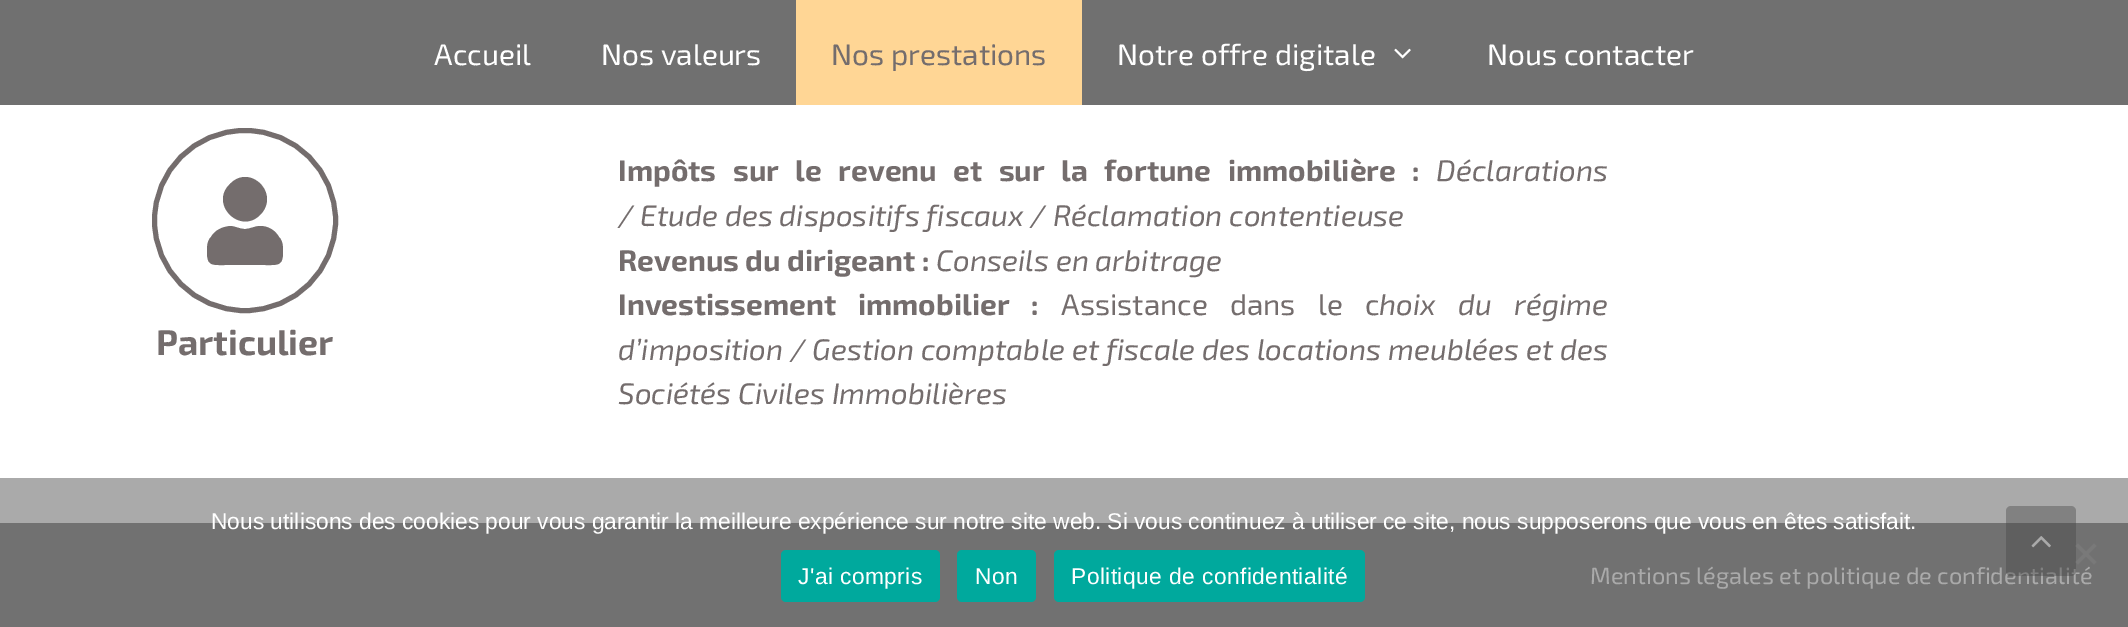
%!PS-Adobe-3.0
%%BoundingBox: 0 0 2128 627
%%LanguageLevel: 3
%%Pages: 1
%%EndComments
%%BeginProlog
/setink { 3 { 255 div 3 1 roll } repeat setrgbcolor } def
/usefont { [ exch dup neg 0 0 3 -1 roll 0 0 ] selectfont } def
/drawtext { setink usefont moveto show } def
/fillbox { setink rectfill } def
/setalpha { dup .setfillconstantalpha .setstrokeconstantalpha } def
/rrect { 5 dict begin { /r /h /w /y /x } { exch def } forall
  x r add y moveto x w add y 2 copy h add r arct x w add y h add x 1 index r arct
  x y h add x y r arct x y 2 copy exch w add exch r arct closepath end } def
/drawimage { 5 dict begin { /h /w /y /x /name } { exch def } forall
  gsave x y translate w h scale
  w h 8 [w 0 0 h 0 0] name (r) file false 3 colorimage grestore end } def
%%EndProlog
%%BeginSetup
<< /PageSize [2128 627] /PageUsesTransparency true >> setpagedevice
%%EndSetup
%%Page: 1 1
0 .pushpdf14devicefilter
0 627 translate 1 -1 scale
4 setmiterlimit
0 0 2128 627 255 255 255 fillbox
0 478 2128 45 170 170 170 fillbox
0 0 2128 105 112 112 112 fillbox
(Accueil) 434 65 /Exo2-Regular 29.75 255 255 255 drawtext
(Nos valeurs) 601 65 /Exo2-Regular 29.75 255 255 255 drawtext
796 0 286 105 255 214 149 fillbox
(Nos prestations) 831 65 /Exo2-Regular 29.75 116 109 109 drawtext
(Notre offre digitale) 1117 65 /Exo2-Regular 29.75 255 255 255 drawtext
(assets/img1.rgb) 1394 48 17 11 drawimage
(Nous contacter) 1487 65 /Exo2-Regular 29.75 255 255 255 drawtext
116 109 109 setink
5 setlinewidth
154.5 130.5 181 180 90 rrect stroke
260 215 moveto 240 235 209 204 230 184 curveto 250 163 281 194 260 215 curveto closepath 260 226 moveto 268 226 275 230 279 237 curveto 283 241 283 247 283 252 curveto 283 266 278 265 265 265 curveto 225 265 lineto 212 265 207 266 207 252 curveto 207 247 207 241 211 237 curveto 215 230 222 227 230 226 curveto 235 226 239 229 245 229 curveto 250 229 255 226 260 226 curveto closepath fill
(Particulier) 156 355 /Exo2-Bold 35.5 116 109 109 drawtext
/Exo2-Bold 29.75 usefont
618 181 moveto 10 0 32 (Impôts sur le revenu et sur la fortune immobilière :) widthshow
(Déclarations) 1436 181 /Exo2-Italic 29.75 116 109 109 drawtext
(/ Etude des dispositifs fiscaux / Réclamation contentieuse) 618 226 /Exo2-Italic 29.75 116 109 109 drawtext
(Revenus du dirigeant :) 618 271 /Exo2-Bold 29.75 116 109 109 drawtext
(Conseils en arbitrage) 936 271 /Exo2-Italic 29.75 116 109 109 drawtext
/Exo2-Bold 29.75 usefont
618 315 moveto 15.5 0 32 (Investissement immobilier :) widthshow
/Exo2-Regular 29.75 usefont
1061 315 moveto 15.5 0 32 (Assistance dans le c) widthshow
/Exo2-Italic 29.75 usefont
1379 315 moveto 15.5 0 32 (hoix du régime) widthshow
(d’imposition / Gestion comptable et fiscale des locations meublées et des) 618 360 /Exo2-Italic 29.75 116 109 109 drawtext
(Sociétés Civiles Immobilières) 618 404 /Exo2-Italic 29.75 116 109 109 drawtext
0 523 2128 104 113 113 113 fillbox
(Nous utilisons des cookies pour vous garantir la meilleure expérience sur notre site web. Si vous continuez à utiliser ce site, nous supposerons que vous en êtes satisfait.) 211 529 /LiberationSans-Regular 22.75 255 255 255 drawtext
(Mentions légales et politique de confidentialité) 1590 584 /Exo2-Regular 23.6 170 170 170 drawtext
0.4 setalpha
68 68 68 setink
2006 506 70 70 5 rrect fill
1 setalpha
121 121 121 setink
2094 543.5 moveto 2096.5 546 lineto 2078 564.5 lineto 2075.5 562 lineto closepath fill
2075.5 546 moveto 2078 543.5 lineto 2096.5 562 lineto 2094 564.5 lineto closepath fill
0 169 157 setink
781 550 159 52 5 rrect fill
/LiberationSans-Regular 22.75 usefont
255 255 255 setink
798 584 moveto 0.45 0 (J'ai compris) ashow
0 169 157 setink
957 550 79 52 5 rrect fill
255 255 255 setink
975 584 moveto 0.45 0 (Non) ashow
0 169 157 setink
1054 550 311 52 5 rrect fill
255 255 255 setink
1071 584 moveto 0.45 0 (Politique de confidentialité) ashow
(assets/img2.rgb) 2031 536 20 12 drawimage
.poppdf14devicefilter showpage
%%EOF
